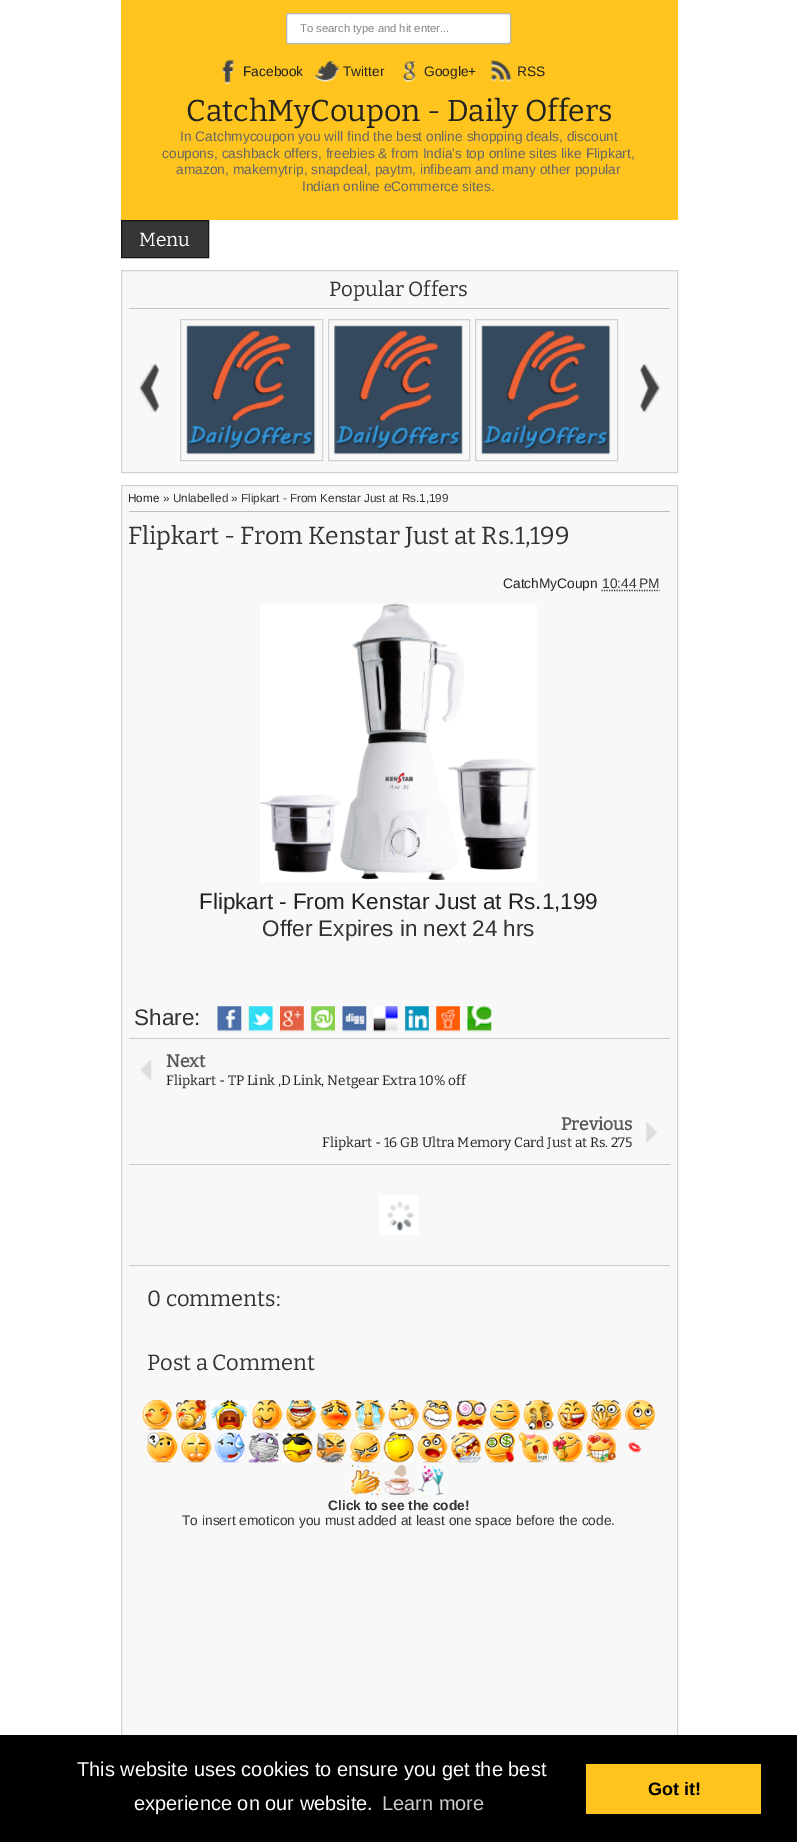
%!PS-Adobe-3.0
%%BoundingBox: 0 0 797 1842
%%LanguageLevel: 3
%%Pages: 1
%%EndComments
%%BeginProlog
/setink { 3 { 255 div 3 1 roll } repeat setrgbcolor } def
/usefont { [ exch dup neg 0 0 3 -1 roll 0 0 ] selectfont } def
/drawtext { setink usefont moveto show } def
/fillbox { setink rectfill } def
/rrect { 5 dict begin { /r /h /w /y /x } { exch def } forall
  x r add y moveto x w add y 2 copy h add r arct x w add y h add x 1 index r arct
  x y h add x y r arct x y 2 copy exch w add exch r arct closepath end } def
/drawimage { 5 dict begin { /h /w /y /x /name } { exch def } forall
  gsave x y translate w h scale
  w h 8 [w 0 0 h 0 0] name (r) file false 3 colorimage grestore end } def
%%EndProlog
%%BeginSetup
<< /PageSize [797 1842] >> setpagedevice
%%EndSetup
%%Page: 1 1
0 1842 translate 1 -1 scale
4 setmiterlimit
0 0 797 1842 255 255 255 fillbox
121 0 557 220 255 197 30 fillbox
255 255 255 setink
286.5 13.5 224 30 2 rrect gsave fill grestore
180 180 180 setink
stroke
(To search type and hit enter...) 300 32 /LiberationSans-Regular 11.25 131 131 131 drawtext
(assets/img1.rgb) 222 59 12 25 drawimage
(Facebook) 243 76 /LiberationSans-Regular 13.75 34 34 34 drawtext
(assets/img2.rgb) 315 61 25 21 drawimage
(Twitter) 343 76 /LiberationSans-Regular 13.75 34 34 34 drawtext
(assets/img3.rgb) 403 61 13 21 drawimage
(Google+) 424 76 /LiberationSans-Regular 13.75 34 34 34 drawtext
(assets/img4.rgb) 491 60 21 22 drawimage
(RSS) 517 76 /LiberationSans-Regular 13.75 34 34 34 drawtext
(CatchMyCoupon - Daily Offers) 186 121 /Bitter-Thin 30.25 34 34 34 drawtext
(In Catchmycoupon you will find the best online shopping deals, discount) 180 141 /LiberationSans-Regular 13.75 102 102 102 drawtext
(coupons, cashback offers, freebies & from India's top online sites like Flipkart,) 162 158 /LiberationSans-Regular 13.75 102 102 102 drawtext
(amazon, makemytrip, snapdeal, paytm, infibeam and many other popular) 176 174 /LiberationSans-Regular 13.75 102 102 102 drawtext
(Indian online eCommerce sites.) 302 191 /LiberationSans-Regular 13.75 102 102 102 drawtext
54 54 54 setink
121.5 220.5 moveto 208.5 220.5 lineto 208.5 257.5 lineto 121.5 257.5 lineto closepath gsave fill grestore
19 19 19 setink
stroke
(Menu) 139 246 /Bitter-Thin 19 255 255 255 drawtext
248 248 248 setink
121.5 270.5 moveto 677.5 270.5 lineto 677.5 472.5 lineto 121.5 472.5 lineto closepath gsave fill grestore
211 211 211 setink
stroke
129 308 541 1 194 194 194 fillbox
(Popular Offers) 329 296 /Bitter-Thin 20.5 51 51 51 drawtext
(assets/img5.rgb) 139 363 21 50 drawimage
209 209 209 setink
180.5 319.5 142 141 rectstroke
(assets/img6.rgb) 186 325 130 130 drawimage
328.5 319.5 141 141 rectstroke
(assets/img7.rgb) 334 325 129 130 drawimage
475.5 319.5 142 141 rectstroke
(assets/img8.rgb) 481 325 130 130 drawimage
(assets/img9.rgb) 639 363 22 50 drawimage
122 486 555 1249 248 248 248 fillbox
211 211 211 setink
121.5 485.5 556 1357 rectstroke
129 1038 541 1 201 201 201 fillbox
129 511 541 1 190 190 190 fillbox
(Home) 128 502 /LiberationSans-Regular 11.7 34 34 34 drawtext
(» Unlabelled » Flipkart - From Kenstar Just at Rs.1,199) 163 502 /LiberationSans-Regular 11.7 51 51 51 drawtext
(Flipkart - From Kenstar Just at Rs.1,199) 128 544 /Bitter-Thin 24.75 51 51 51 drawtext
(CatchMyCoupn) 503 588 /LiberationSans-Regular 13.75 34 34 34 drawtext
(10:44 PM) 602 588 /LiberationSans-Regular 13.75 51 51 51 drawtext
1.2 setlinewidth
[1.25 1.25] 0 setdash
601.5 590.5 moveto 659.5 590.5 lineto stroke
(assets/img10.rgb) 260 603 277 279 drawimage
(Flipkart - From Kenstar Just at Rs.1,199) 199 909 /LiberationSans-Regular 22.5 34 34 34 drawtext
(Offer Expires in next 24 hrs) 262 936 /LiberationSans-Regular 22.5 51 51 51 drawtext
(Share:) 134 1025 /LiberationSans-Regular 22.5 51 51 51 drawtext
(assets/img11.rgb) 217 1006 25 26 drawimage
(assets/img12.rgb) 248 1006 25 26 drawimage
(assets/img13.rgb) 280 1006 24 26 drawimage
(assets/img14.rgb) 311 1006 24 26 drawimage
(assets/img15.rgb) 342 1006 25 26 drawimage
(assets/img16.rgb) 373 1006 25 26 drawimage
(assets/img17.rgb) 405 1006 24 26 drawimage
(assets/img18.rgb) 436 1006 24 26 drawimage
(assets/img19.rgb) 467 1006 25 26 drawimage
(assets/img20.rgb) 140 1060 12 20 drawimage
(Next) 166 1067 /Bitter-Bold 17.5 87 87 87 drawtext
(Flipkart - TP Link ,D Link, Netgear Extra 10% off) 166 1085 /Bitter-Thin 13.7 34 34 34 drawtext
(assets/img21.rgb) 646 1122 12 21 drawimage
(Previous) 561 1130 /Bitter-Bold 17.5 87 87 87 drawtext
(Flipkart - 16 GB Ultra Memory Card Just at Rs. 275) 322 1147 /Bitter-Thin 13.7 34 34 34 drawtext
129 1164 541 1 201 201 201 fillbox
129 1265 541 1 201 201 201 fillbox
(assets/img22.rgb) 379 1195 40 40 drawimage
(0 comments:) 147 1306 /Bitter-Thin 22 51 51 51 drawtext
(Post a Comment) 147 1370 /Bitter-Thin 22 51 51 51 drawtext
(assets/img23.rgb) 142 1400 31 30 drawimage
(assets/img24.rgb) 176 1400 31 30 drawimage
(assets/img25.rgb) 210 1400 39 30 drawimage
(assets/img26.rgb) 252 1400 31 30 drawimage
(assets/img27.rgb) 286 1400 31 30 drawimage
(assets/img28.rgb) 320 1400 32 30 drawimage
(assets/img29.rgb) 355 1400 30 30 drawimage
(assets/img30.rgb) 388 1400 31 30 drawimage
(assets/img31.rgb) 422 1400 30 30 drawimage
(assets/img32.rgb) 456 1400 31 30 drawimage
(assets/img33.rgb) 490 1400 30 30 drawimage
(assets/img34.rgb) 523 1400 31 30 drawimage
(assets/img35.rgb) 557 1400 31 30 drawimage
(assets/img36.rgb) 591 1400 31 30 drawimage
(assets/img37.rgb) 625 1400 30 30 drawimage
(assets/img38.rgb) 147 1432 31 31 drawimage
(assets/img39.rgb) 181 1432 31 31 drawimage
(assets/img40.rgb) 215 1432 30 31 drawimage
(assets/img41.rgb) 248 1432 31 31 drawimage
(assets/img42.rgb) 282 1432 31 31 drawimage
(assets/img43.rgb) 316 1432 31 31 drawimage
(assets/img44.rgb) 350 1432 30 31 drawimage
(assets/img45.rgb) 383 1432 31 31 drawimage
(assets/img46.rgb) 417 1432 31 31 drawimage
(assets/img47.rgb) 451 1432 31 31 drawimage
(assets/img48.rgb) 485 1432 30 31 drawimage
(assets/img49.rgb) 518 1432 31 31 drawimage
(assets/img50.rgb) 552 1432 31 31 drawimage
(assets/img51.rgb) 586 1432 31 31 drawimage
(assets/img52.rgb) 628 1441 14 12 drawimage
(assets/img53.rgb) 350 1465 30 30 drawimage
(assets/img54.rgb) 384 1465 30 30 drawimage
(assets/img55.rgb) 417 1465 30 30 drawimage
(Click to see the code!) 328 1510 /LiberationSans-Bold 13.75 51 51 51 drawtext
(To insert emoticon you must added at least one space before the code.) 182 1525 /LiberationSans-Regular 13.75 51 51 51 drawtext
0 1735 797 107 0 0 0 fillbox
(This website uses cookies to ensure you get the best) 77 1776 /LiberationSans-Regular 20 255 255 255 drawtext
(experience on our website.) 134 1810 /LiberationSans-Regular 20 255 255 255 drawtext
(Learn more) 382 1810 /LiberationSans-Regular 20 204 204 204 drawtext
586 1764 175 50 255 197 30 fillbox
(Got it!) 648 1795 /LiberationSans-Bold 18 0 0 0 drawtext
showpage
%%EOF
